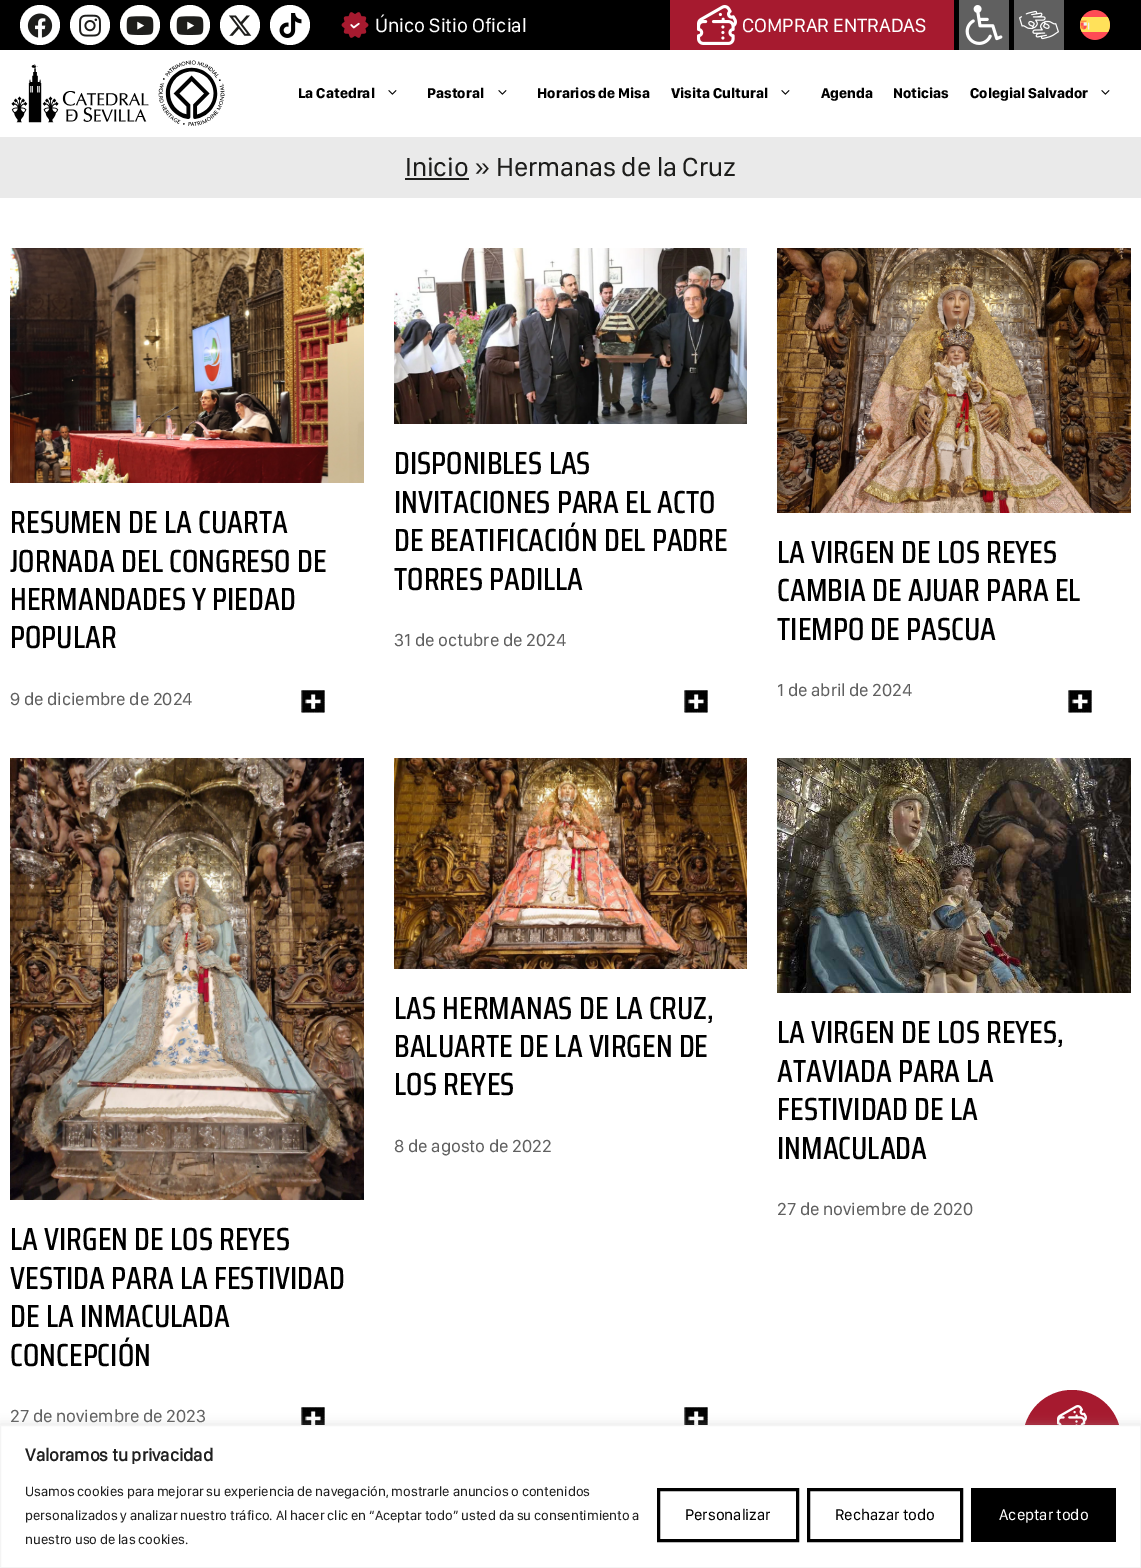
%!PS-Adobe-3.0
%%BoundingBox: 0 0 1141 1568
%%LanguageLevel: 3
%%Pages: 1
%%EndComments
%%BeginProlog
/setink { 3 { 255 div 3 1 roll } repeat setrgbcolor } def
/usefont { [ exch dup neg 0 0 3 -1 roll 0 0 ] selectfont } def
/drawtext { setink usefont moveto show } def
/fillbox { setink rectfill } def
/setalpha { dup .setfillconstantalpha .setstrokeconstantalpha } def
/disc { newpath 0 360 arc closepath } def
/rrect { 5 dict begin { /r /h /w /y /x } { exch def } forall
  x r add y moveto x w add y 2 copy h add r arct x w add y h add x 1 index r arct
  x y h add x y r arct x y 2 copy exch w add exch r arct closepath end } def
/softshadow { 12 dict begin { /a /b /q /h /w /y /x } { exch def } forall gsave /was 0 def
  9 -2 -9 { dup b mul 4 div /e exch def 1 sub .425 mul 2.718 exch exp 1 add a .99 .min exch div /now exch def
    1 1 now sub 1 was sub div sub setalpha /was now def
    w h .min e 2 mul add 0 gt { x e sub y e sub w e 2 mul add h e 2 mul add
      q e add b .6 mul add w h .min 2 div e add .min 0 .max rrect fill } if } for grestore end } def
/drawimage { 5 dict begin { /h /w /y /x /name } { exch def } forall
  gsave x y translate w h scale
  w h 8 [w 0 0 h 0 0] name (r) file false 3 colorimage grestore end } def
%%EndProlog
%%BeginSetup
<< /PageSize [1141 1568] /PageUsesTransparency true >> setpagedevice
%%EndSetup
%%Page: 1 1
0 .pushpdf14devicefilter
0 1568 translate 1 -1 scale
4 setmiterlimit
0 0 1141 1568 255 255 255 fillbox
0 0 1141 50 0 0 0 fillbox
255 255 255 setink
40 25 20 disc fill
(assets/img1.rgb) 27 13 26 25 drawimage
90 25 20 disc fill
(assets/img2.rgb) 79 14 22 23 drawimage
140 25 20 disc fill
(assets/img3.rgb) 126 16 28 19 drawimage
190 25 20 disc fill
(assets/img3.rgb) 176 16 28 19 drawimage
240 25 20 disc fill
(assets/img4.rgb) 229 15 23 21 drawimage
290 25 20 disc fill
(assets/img5.rgb) 279 13 23 25 drawimage
(assets/img6.rgb) 341 12 28 26 drawimage
(Único Sitio Oficial) 375 32 /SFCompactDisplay-Regular 20 255 255 255 drawtext
670 0 284 50 166 26 47 fillbox
(assets/img7.rgb) 697 5 40 40 drawimage
(COMPRAR ENTRADAS) 742 32 /SFCompactDisplay-Regular 20 255 255 255 drawtext
959 0 50 50 96 96 96 fillbox
(assets/img8.rgb) 965 5 38 40 drawimage
1014 0 50 50 96 96 96 fillbox
(assets/img9.rgb) 1019 10 40 30 drawimage
(assets/img10.rgb) 1080 10 30 30 drawimage
(assets/img11.rgb) 11 64 138 59 drawimage
(assets/img12.rgb) 158 60 67 66 drawimage
(La Catedral) 298 98 /SFCompactDisplay-Bold 14.75 0 0 0 drawtext
(assets/img13.rgb) 388 90 9 5 drawimage
(Pastoral) 427 98 /SFCompactDisplay-Bold 14.75 0 0 0 drawtext
(assets/img13.rgb) 498 90 9 5 drawimage
(Horarios de Misa) 537 98 /SFCompactDisplay-Bold 14.75 0 0 0 drawtext
(Visita Cultural) 671 98 /SFCompactDisplay-Bold 14.75 0 0 0 drawtext
(assets/img13.rgb) 781 90 9 5 drawimage
(Agenda) 821 98 /SFCompactDisplay-Bold 14.75 0 0 0 drawtext
(Noticias) 893 98 /SFCompactDisplay-Bold 14.75 0 0 0 drawtext
(Colegial Salvador) 970 98 /SFCompactDisplay-Bold 14.75 0 0 0 drawtext
(assets/img13.rgb) 1101 90 9 5 drawimage
0 137 1141 61 234 234 234 fillbox
(Inicio » Hermanas de la Cruz) 405 176 /SFCompactDisplay-Regular 27 29 29 27 drawtext
405 178 64 2 29 29 27 fillbox
(assets/img14.rgb) 10 248 354 235 drawimage
(RESUMEN DE LA CUARTA) 10 533 /SairaCondensed-Medium 32 0 0 0 drawtext
(JORNADA DEL CONGRESO DE) 10 572 /SairaCondensed-Medium 32 0 0 0 drawtext
(HERMANDADES Y PIEDAD) 10 610 /SairaCondensed-Medium 32 0 0 0 drawtext
(POPULAR) 10 648 /SairaCondensed-Medium 32 0 0 0 drawtext
(9 de diciembre de 2024) 10 705 /SFCompactDisplay-Regular 18 96 96 96 drawtext
(assets/img15.rgb) 301 690 24 23 drawimage
(assets/img16.rgb) 394 248 353 176 drawimage
(DISPONIBLES LAS) 394 474 /SairaCondensed-Medium 32 0 0 0 drawtext
(INVITACIONES PARA EL ACTO) 394 513 /SairaCondensed-Medium 32 0 0 0 drawtext
(DE BEATIFICACIÓN DEL PADRE) 394 551 /SairaCondensed-Medium 32 0 0 0 drawtext
(TORRES PADILLA) 394 590 /SairaCondensed-Medium 32 0 0 0 drawtext
(31 de octubre de 2024) 394 646 /SFCompactDisplay-Regular 18 96 96 96 drawtext
(assets/img15.rgb) 684 690 24 23 drawimage
(assets/img17.rgb) 777 248 354 265 drawimage
(LA VIRGEN DE LOS REYES) 777 563 /SairaCondensed-Medium 32 0 0 0 drawtext
(CAMBIA DE AJUAR PARA EL) 777 601 /SairaCondensed-Medium 32 0 0 0 drawtext
(TIEMPO DE PASCUA) 777 640 /SairaCondensed-Medium 32 0 0 0 drawtext
(1 de abril de 2024) 777 696 /SFCompactDisplay-Regular 18 96 96 96 drawtext
(assets/img15.rgb) 1068 690 24 23 drawimage
(assets/img18.rgb) 394 758 353 211 drawimage
(LAS HERMANAS DE LA CRUZ,) 394 1019 /SairaCondensed-Medium 32 0 0 0 drawtext
(BALUARTE DE LA VIRGEN DE) 394 1057 /SairaCondensed-Medium 32 0 0 0 drawtext
(LOS REYES) 394 1095 /SairaCondensed-Medium 32 0 0 0 drawtext
(8 de agosto de 2022) 394 1152 /SFCompactDisplay-Regular 18 96 96 96 drawtext
(assets/img19.rgb) 684 1407 24 18 drawimage
(assets/img20.rgb) 777 758 354 235 drawimage
(LA VIRGEN DE LOS REYES,) 777 1043 /SairaCondensed-Medium 32 0 0 0 drawtext
(ATAVIADA PARA LA) 777 1082 /SairaCondensed-Medium 32 0 0 0 drawtext
(FESTIVIDAD DE LA) 777 1120 /SairaCondensed-Medium 32 0 0 0 drawtext
(INMACULADA) 777 1159 /SairaCondensed-Medium 32 0 0 0 drawtext
(27 de noviembre de 2020) 777 1215 /SFCompactDisplay-Regular 18 96 96 96 drawtext
(assets/img21.rgb) 10 758 354 442 drawimage
(LA VIRGEN DE LOS REYES) 10 1250 /SairaCondensed-Medium 32 0 0 0 drawtext
(VESTIDA PARA LA FESTIVIDAD) 10 1289 /SairaCondensed-Medium 32 0 0 0 drawtext
(DE LA INMACULADA) 10 1327 /SairaCondensed-Medium 32 0 0 0 drawtext
(CONCEPCIÓN) 10 1366 /SairaCondensed-Medium 32 0 0 0 drawtext
(27 de noviembre de 2023) 10 1422 /SFCompactDisplay-Regular 18 96 96 96 drawtext
(assets/img19.rgb) 301 1407 24 18 drawimage
166 26 47 setink
1072 1439 49 disc fill
(assets/img22.rgb) 1057 1405 30 20 drawimage
172 171 171 setink
0 1424 1141 143 0 5 0.3 softshadow
255 255 255 setink
0.5 1425.5 moveto 1140.5 1425.5 lineto 1140.5 1567.5 lineto 0.5 1567.5 lineto closepath gsave fill grestore
244 244 244 setink
stroke
(Valoramos tu privacidad) 25 1461 /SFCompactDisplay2-Bold 18 33 33 33 drawtext
(Usamos cookies para mejorar su experiencia de navegación, mostrarle anuncios o contenidos) 25 1496 /SFCompactDisplay-Regular 14 33 33 33 drawtext
(personalizados y analizar nuestro tráfico. Al hacer clic en “Aceptar todo” usted da su consentimiento a) 25 1520 /SFCompactDisplay-Regular 14 33 33 33 drawtext
(nuestro uso de las cookies.) 25 1544 /SFCompactDisplay-Regular 14 33 33 33 drawtext
0 0 0 setink
3 setlinewidth
658.5 1489.5 139 51 rectstroke
(Personalizar) 685 1520 /SFCompactDisplay-Regular 16 0 0 0 drawtext
808.5 1489.5 153 51 rectstroke
(Rechazar todo) 835 1520 /SFCompactDisplay-Regular 16 0 0 0 drawtext
971 1488 145 54 0 0 0 fillbox
(Aceptar todo) 999 1520 /SFCompactDisplay-Regular 16 255 255 255 drawtext
.poppdf14devicefilter showpage
%%EOF
